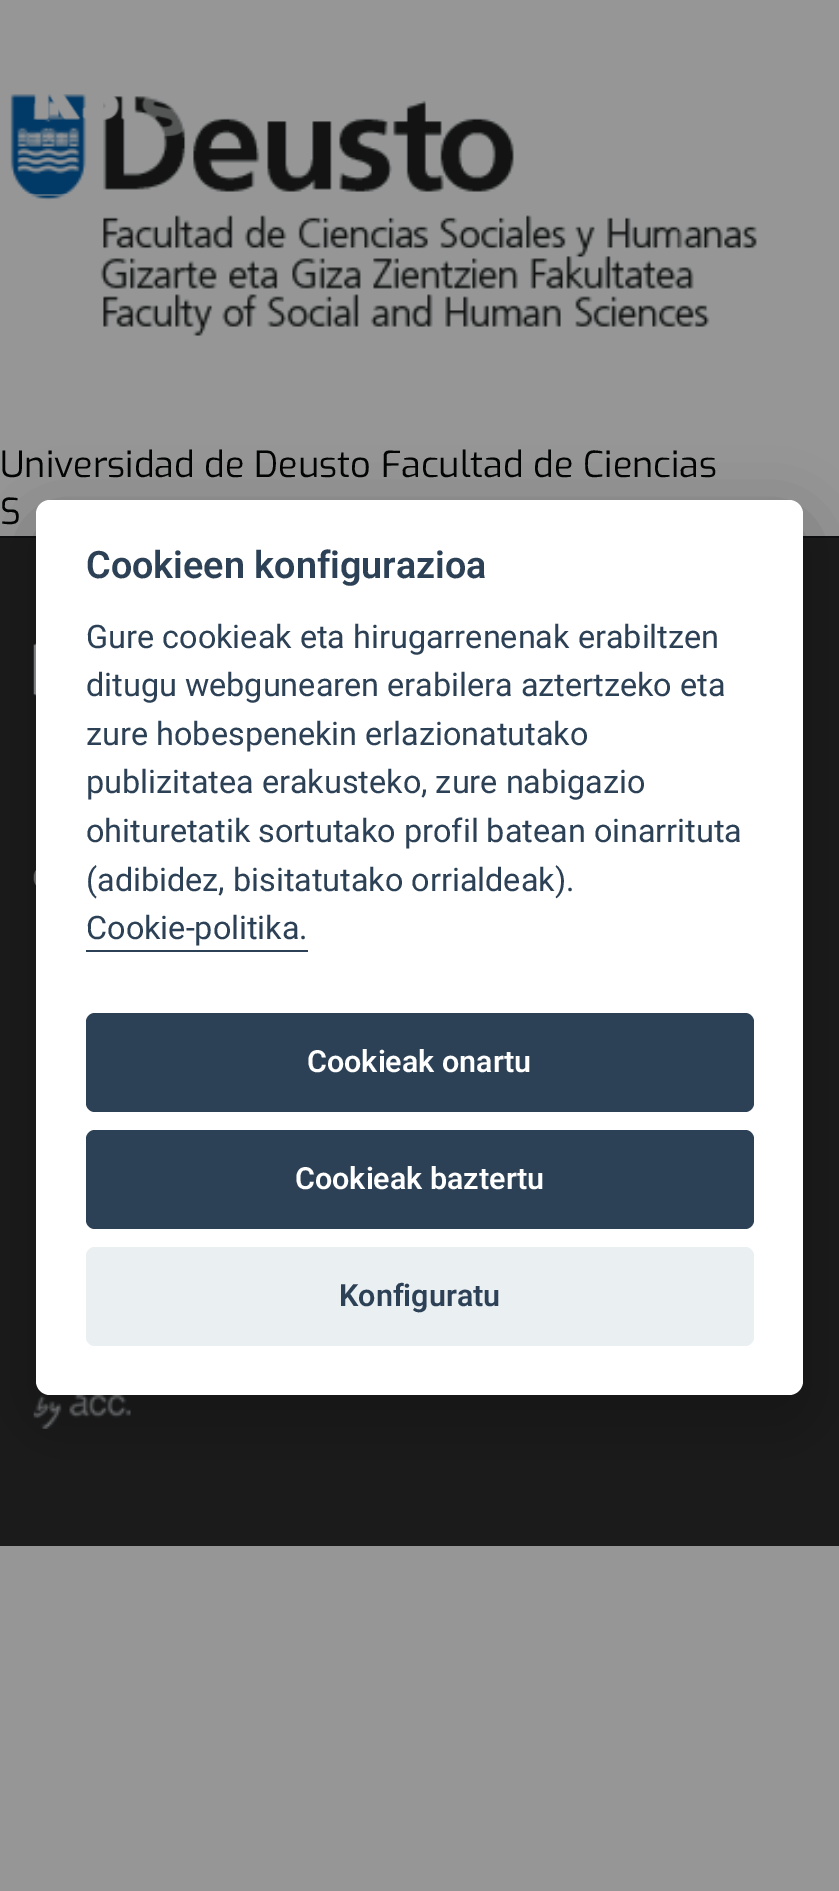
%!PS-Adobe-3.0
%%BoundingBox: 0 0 839 1891
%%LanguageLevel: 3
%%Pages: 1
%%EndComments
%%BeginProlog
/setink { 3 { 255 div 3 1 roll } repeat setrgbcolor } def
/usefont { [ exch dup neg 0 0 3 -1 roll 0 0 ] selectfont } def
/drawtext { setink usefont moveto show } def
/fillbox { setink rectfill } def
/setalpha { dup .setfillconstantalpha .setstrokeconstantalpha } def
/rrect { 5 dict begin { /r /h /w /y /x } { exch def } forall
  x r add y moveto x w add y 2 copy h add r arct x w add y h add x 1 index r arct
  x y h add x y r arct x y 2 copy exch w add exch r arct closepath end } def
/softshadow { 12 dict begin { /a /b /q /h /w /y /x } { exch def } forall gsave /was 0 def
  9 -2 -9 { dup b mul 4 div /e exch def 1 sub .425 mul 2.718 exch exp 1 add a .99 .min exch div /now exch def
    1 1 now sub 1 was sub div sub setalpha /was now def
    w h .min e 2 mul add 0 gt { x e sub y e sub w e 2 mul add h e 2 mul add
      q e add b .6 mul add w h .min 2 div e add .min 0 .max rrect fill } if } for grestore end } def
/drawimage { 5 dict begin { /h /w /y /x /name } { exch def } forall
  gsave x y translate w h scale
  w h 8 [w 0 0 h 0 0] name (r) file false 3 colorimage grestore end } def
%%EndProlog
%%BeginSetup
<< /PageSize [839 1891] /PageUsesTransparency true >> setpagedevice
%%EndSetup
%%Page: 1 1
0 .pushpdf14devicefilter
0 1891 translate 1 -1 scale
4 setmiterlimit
0 0 839 1891 150 150 151 fillbox
(assets/img2.rgb) 10 94 747 242 drawimage
0.5 setalpha
29 194 39 2 150 150 151 fillbox
1 setalpha
(assets/img1.rgb) 34 94 193 44 drawimage
(Universidad de Deusto Facultad de Ciencias) 0 477 /Exo-Regular 36 2 3 3 drawtext
(S) 0 524 /Exo-Regular 36 2 3 3 drawtext
0 538 839 1008 27 27 28 fillbox
0 536 839 2 14 15 16 fillbox
(assets/img3.rgb) 33 643 3 53 drawimage
(assets/img4.rgb) 33 870 3 15 drawimage
(assets/img5.rgb) 33 1395 98 34 drawimage
gsave
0 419 moveto 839 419 lineto 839 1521 lineto 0 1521 lineto closepath 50 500 moveto 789 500 lineto 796.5 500 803 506.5 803 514 curveto 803 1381 lineto 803 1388.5 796.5 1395 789 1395 curveto 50 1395 lineto 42.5 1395 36 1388.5 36 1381 curveto 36 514 lineto 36 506.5 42.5 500 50 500 curveto closepath eoclip newpath
2 2 3 setink
36 522 767 896 14 34 0.28 softshadow
grestore
255 255 255 setink
36 500 767 895 14 rrect fill
(Cookieen konfigurazioa) 86 578 /Roboto-SemiBold 37.75 45 65 86 drawtext
(Gure cookieak eta hirugarrenenak erabiltzen) 86 648 /Roboto-Regular 32.4 45 65 86 drawtext
(ditugu webgunearen erabilera aztertzeko eta) 86 696 /Roboto-Regular 32.4 45 65 86 drawtext
(zure hobespenekin erlazionatutako) 86 745 /Roboto-Regular 32.4 45 65 86 drawtext
(publizitatea erakusteko, zure nabigazio) 86 793 /Roboto-Regular 32.4 45 65 86 drawtext
(ohituretatik sortutako profil batean oinarrituta) 86 842 /Roboto-Regular 32.4 45 65 86 drawtext
(\(adibidez, bisitatutako orrialdeak\).) 86 891 /Roboto-Regular 32.4 45 65 86 drawtext
(Cookie-politika.) 86 939 /Roboto-Regular 32.4 45 65 86 drawtext
86 950 222 2 45 65 86 fillbox
86 1013 668 99 9 rrect fill
(Cookieak onartu) 307 1072 /Roboto-SemiBold 30.5 255 255 255 drawtext
45 65 86 setink
86 1130 668 99 9 rrect fill
(Cookieak baztertu) 295 1189 /Roboto-SemiBold 30.5 255 255 255 drawtext
234 239 242 setink
86 1247 668 99 9 rrect fill
(Konfiguratu) 339 1306 /Roboto-SemiBold 30.5 45 65 86 drawtext
.poppdf14devicefilter showpage
%%EOF
